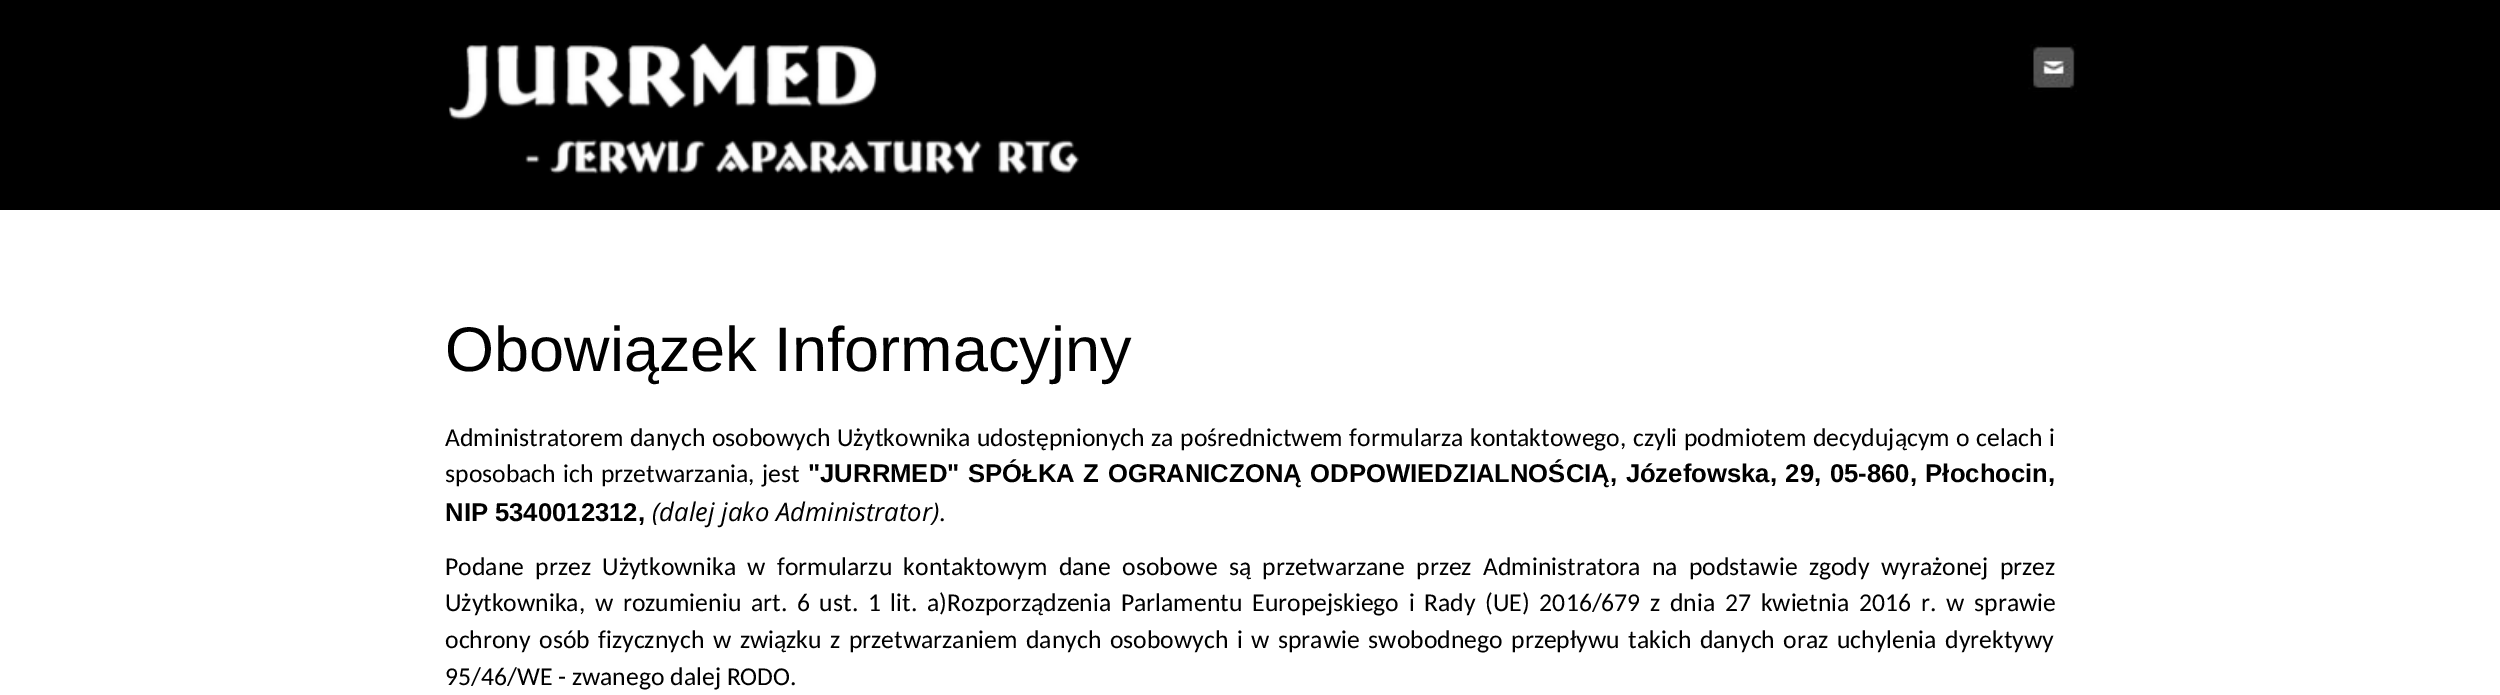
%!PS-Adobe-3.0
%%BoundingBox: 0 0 2500 695
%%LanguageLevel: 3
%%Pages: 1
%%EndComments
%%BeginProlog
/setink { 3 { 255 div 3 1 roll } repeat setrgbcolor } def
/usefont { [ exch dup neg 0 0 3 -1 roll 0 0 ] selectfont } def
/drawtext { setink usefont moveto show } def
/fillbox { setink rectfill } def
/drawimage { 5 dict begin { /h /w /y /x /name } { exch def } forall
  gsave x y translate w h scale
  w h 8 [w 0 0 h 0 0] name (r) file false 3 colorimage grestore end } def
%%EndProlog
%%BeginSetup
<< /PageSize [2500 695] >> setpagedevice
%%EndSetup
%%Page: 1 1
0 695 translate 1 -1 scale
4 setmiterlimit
0 0 2500 695 255 255 255 fillbox
0 0 2500 210 0 0 0 fillbox
(assets/img1.rgb) 448 42 632 133 drawimage
(assets/img2.rgb) 2028 44 49 48 drawimage
(Obowiązek Informacyjny) 445 371 /LiberationSans-Regular 63 0 0 0 drawtext
/Carlito-Regular 25.67 usefont
445 446 moveto 0.75 0 32 (Administratorem danych osobowych Użytkownika udostępnionych za pośrednictwem formularza kontaktowego, czyli podmiotem decydującym o celach i) widthshow
445 482 moveto 1.5 0 32 (sposobach ich przetwarzania, jest) widthshow
/LiberationSans-Bold 25.67 usefont
808 482 moveto 1.5 0 32 ("JURRMED" SPÓŁKA Z OGRANICZONĄ ODPOWIEDZIALNOŚCIĄ, Józefowska, 29, 05-860, Płochocin,) widthshow
(NIP 5340012312,) 445 521 /LiberationSans-Bold 25.67 0 0 0 drawtext
(\(dalej jako Administrator\)) 652 521 /OpenSans-Italic 25.67 0 0 0 drawtext
(.) 939 521 /Carlito-Regular 25.67 0 0 0 drawtext
445 575 moveto 5.6 0 32 (Podane przez Użytkownika w formularzu kontaktowym dane osobowe są przetwarzane przez Administratora na podstawie zgody wyrażonej przez) widthshow
445 611 moveto 3.9 0 32 (Użytkownika, w rozumieniu art. 6 ust. 1 lit. a\)Rozporządzenia Parlamentu Europejskiego i Rady \(UE\) 2016/679 z dnia 27 kwietnia 2016 r. w sprawie) widthshow
445 648 moveto 2.75 0 32 (ochrony osób fizycznych w związku z przetwarzaniem danych osobowych i w sprawie swobodnego przepływu takich danych oraz uchylenia dyrektywy) widthshow
(95/46/WE - zwanego dalej RODO.) 445 685 /Carlito-Regular 25.67 0 0 0 drawtext
showpage
%%EOF
